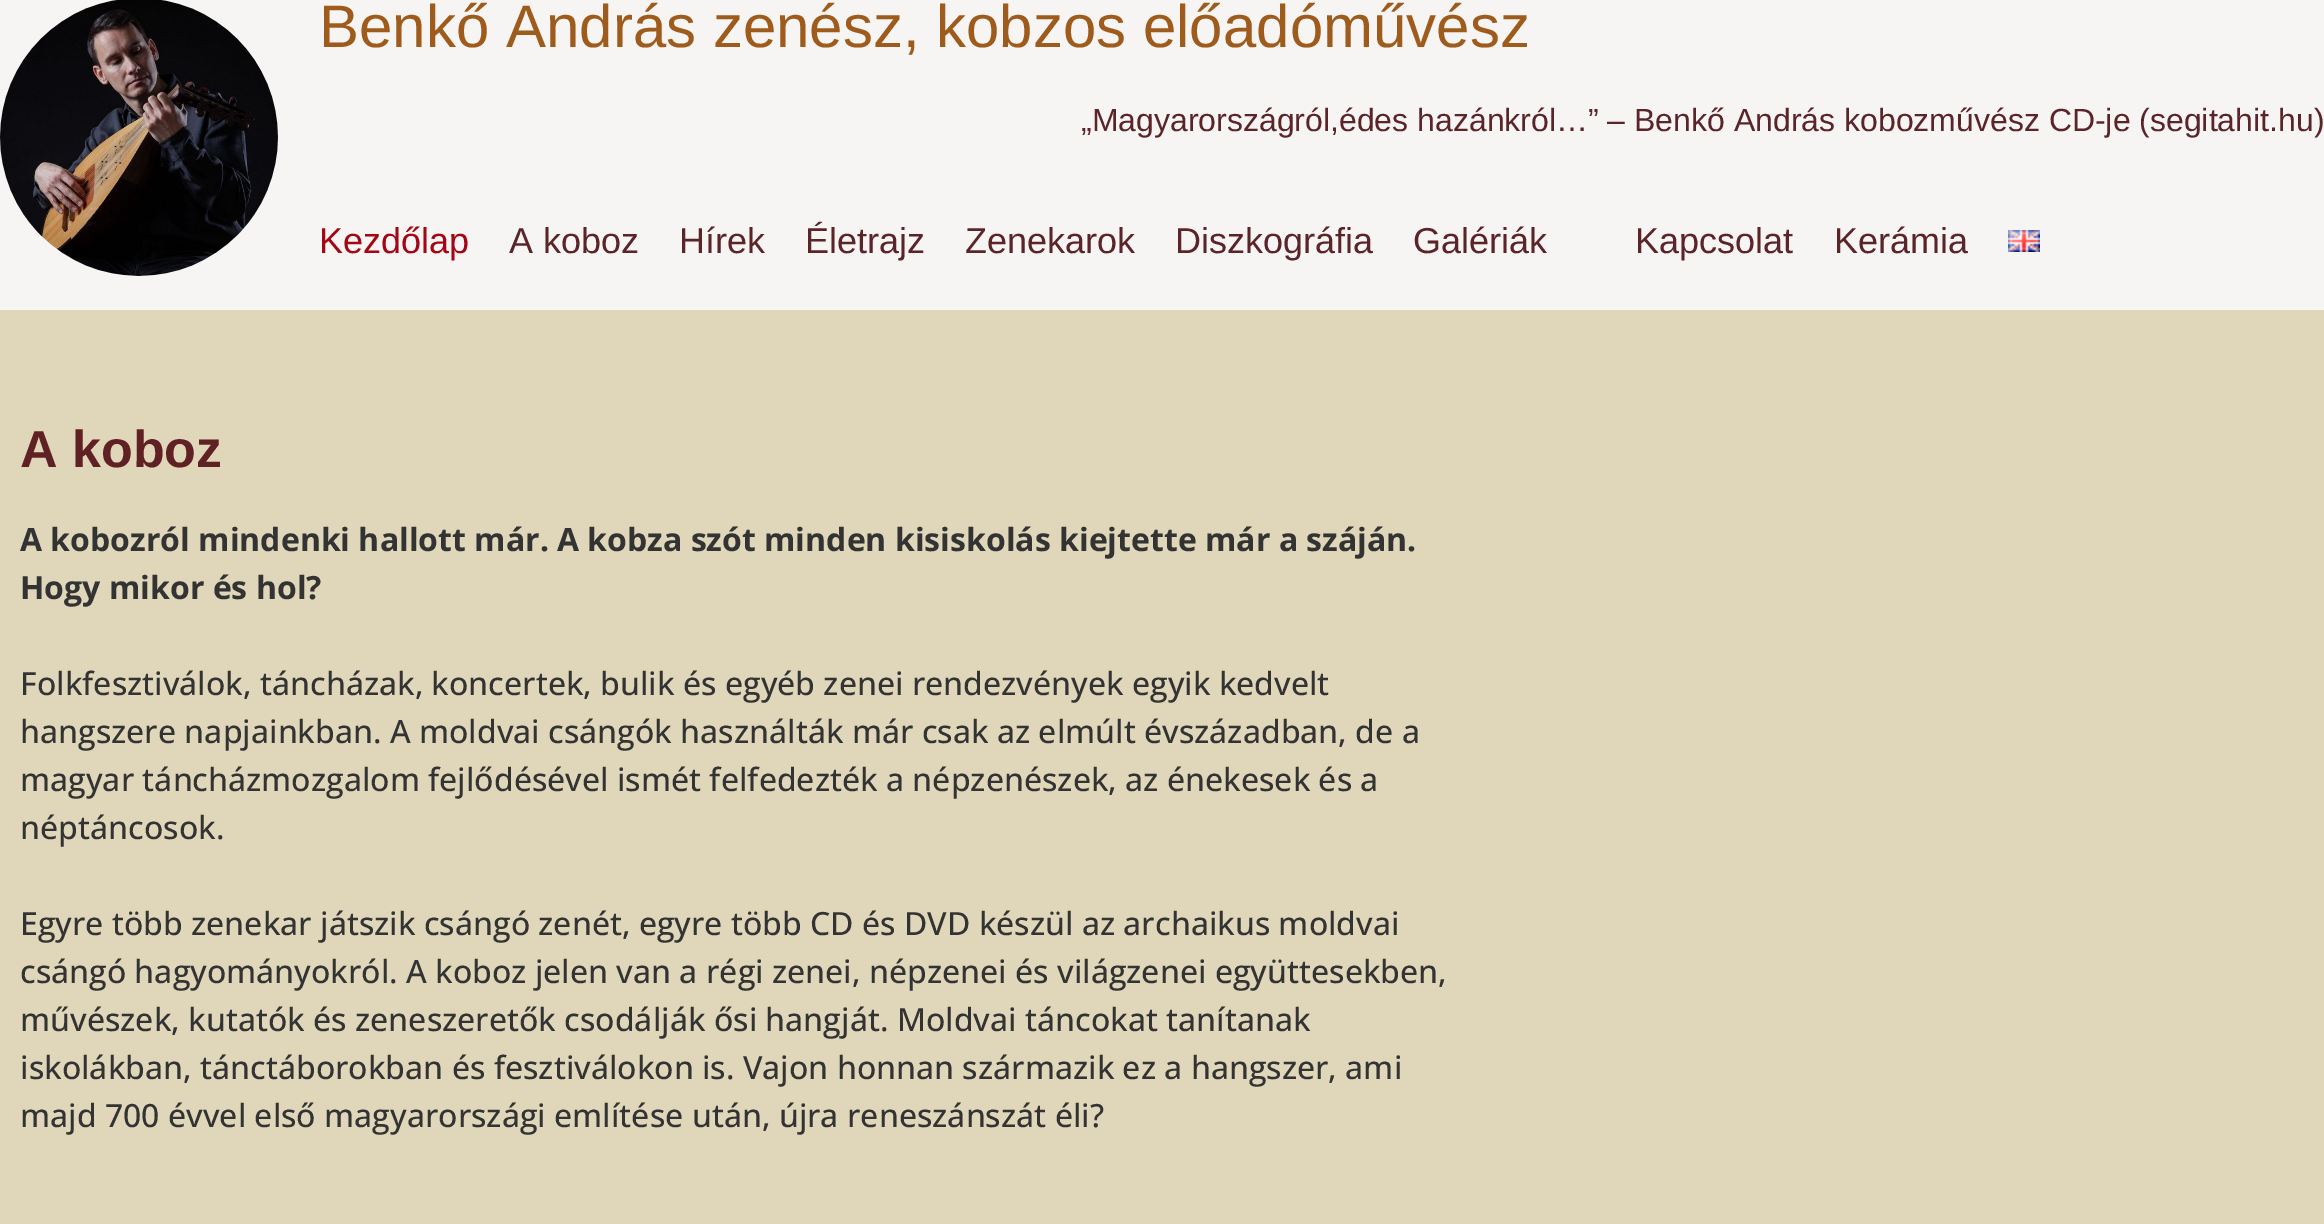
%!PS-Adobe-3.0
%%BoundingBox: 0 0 2324 1224
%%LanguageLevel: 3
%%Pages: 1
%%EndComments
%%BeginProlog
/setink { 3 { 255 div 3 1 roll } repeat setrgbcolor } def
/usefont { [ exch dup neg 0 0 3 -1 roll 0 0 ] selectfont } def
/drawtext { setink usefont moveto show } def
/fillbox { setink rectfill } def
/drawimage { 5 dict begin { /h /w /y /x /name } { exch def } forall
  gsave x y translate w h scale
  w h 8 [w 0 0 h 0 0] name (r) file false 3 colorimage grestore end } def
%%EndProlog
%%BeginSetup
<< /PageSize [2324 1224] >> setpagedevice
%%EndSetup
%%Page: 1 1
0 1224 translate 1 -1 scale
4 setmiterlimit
0 0 2324 1224 246 245 243 fillbox
(assets/img1.rgb) 0 0 278 276 drawimage
(Benkő András zenész, kobzos előadóművész) 319 47 /LiberationSans-Regular 60 158 91 27 drawtext
(„Magyarországról,édes hazánkról…” – Benkő András kobozművész CD-je \(segitahit.hu\)) 1081 131 /LiberationSans-Regular 32 91 36 41 drawtext
(Kezdőlap) 319 253 /LiberationSans-Regular 36 163 6 21 drawtext
(A koboz) 509 253 /LiberationSans-Regular 36 91 36 41 drawtext
(Hírek) 679 253 /LiberationSans-Regular 36 91 36 41 drawtext
(Életrajz) 805 253 /LiberationSans-Regular 36 91 36 41 drawtext
(Zenekarok) 965 253 /LiberationSans-Regular 36 91 36 41 drawtext
(Diszkográfia) 1175 253 /LiberationSans-Regular 36 91 36 41 drawtext
(Galériák) 1413 253 /LiberationSans-Regular 36 91 36 41 drawtext
(Kapcsolat) 1635 253 /LiberationSans-Regular 36 91 36 41 drawtext
(Kerámia) 1834 253 /LiberationSans-Regular 36 91 36 41 drawtext
(assets/img2.rgb) 2008 230 32 22 drawimage
0 310 2324 914 224 215 186 fillbox
(A koboz) 20 467 /LiberationSans-Bold 52 95 33 35 drawtext
(A kobozról mindenki hallott már. A kobza szót minden kisiskolás kiejtette már a száján.) 20 551 /OpenSans-Bold 32 51 51 51 drawtext
(Hogy mikor és hol?) 20 599 /OpenSans-Bold 32 51 51 51 drawtext
(Folkfesztiválok, táncházak, koncertek, bulik és egyéb zenei rendezvények egyik kedvelt) 20 695 /OpenSans-Medium 32 51 51 51 drawtext
(hangszere napjainkban. A moldvai csángók használták már csak az elmúlt évszázadban, de a) 20 743 /OpenSans-Medium 32 51 51 51 drawtext
(magyar táncházmozgalom fejlődésével ismét felfedezték a népzenészek, az énekesek és a) 20 791 /OpenSans-Medium 32 51 51 51 drawtext
(néptáncosok.) 20 839 /OpenSans-Medium 32 51 51 51 drawtext
(Egyre több zenekar játszik csángó zenét, egyre több CD és DVD készül az archaikus moldvai) 20 935 /OpenSans-Medium 32 51 51 51 drawtext
(csángó hagyományokról. A koboz jelen van a régi zenei, népzenei és világzenei együttesekben,) 20 983 /OpenSans-Medium 32 51 51 51 drawtext
(művészek, kutatók és zeneszeretők csodálják ősi hangját. Moldvai táncokat tanítanak) 20 1031 /OpenSans-Medium 32 51 51 51 drawtext
(iskolákban, tánctáborokban és fesztiválokon is. Vajon honnan származik ez a hangszer, ami) 20 1079 /OpenSans-Medium 32 51 51 51 drawtext
(majd 700 évvel első magyarországi említése után, újra reneszánszát éli?) 20 1127 /OpenSans-Medium 32 51 51 51 drawtext
showpage
%%EOF
